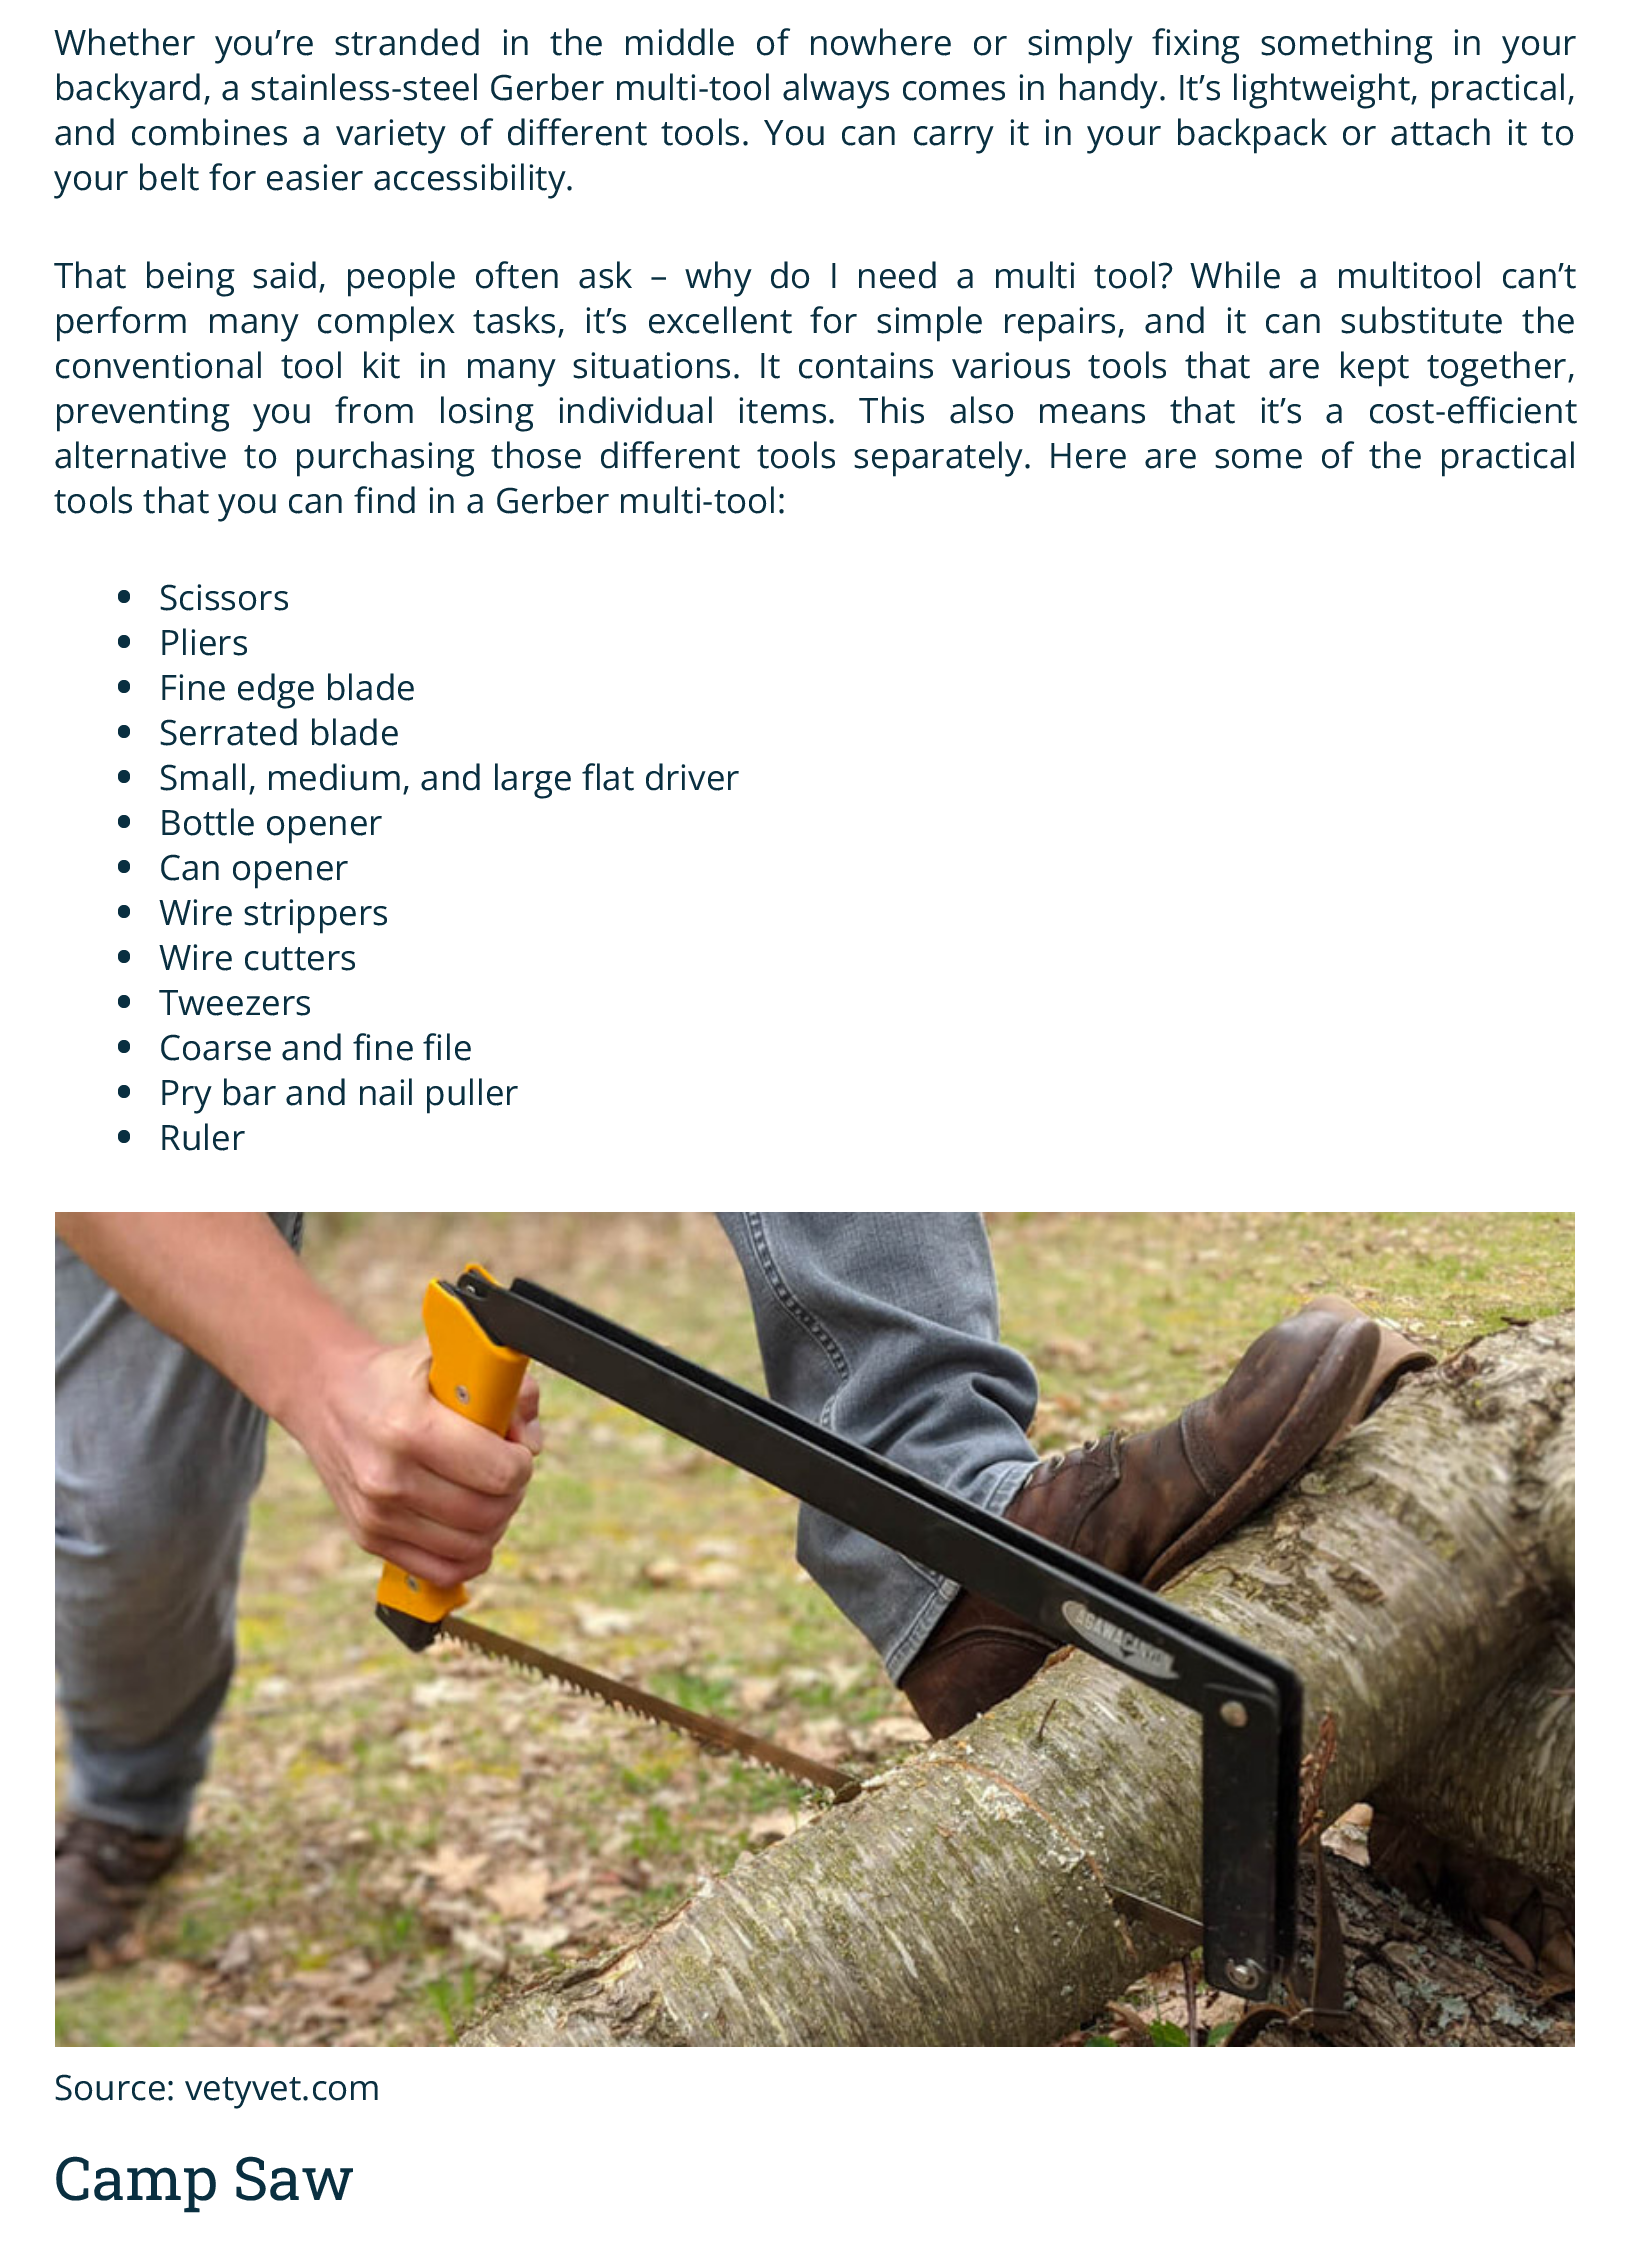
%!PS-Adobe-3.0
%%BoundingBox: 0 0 1628 2259
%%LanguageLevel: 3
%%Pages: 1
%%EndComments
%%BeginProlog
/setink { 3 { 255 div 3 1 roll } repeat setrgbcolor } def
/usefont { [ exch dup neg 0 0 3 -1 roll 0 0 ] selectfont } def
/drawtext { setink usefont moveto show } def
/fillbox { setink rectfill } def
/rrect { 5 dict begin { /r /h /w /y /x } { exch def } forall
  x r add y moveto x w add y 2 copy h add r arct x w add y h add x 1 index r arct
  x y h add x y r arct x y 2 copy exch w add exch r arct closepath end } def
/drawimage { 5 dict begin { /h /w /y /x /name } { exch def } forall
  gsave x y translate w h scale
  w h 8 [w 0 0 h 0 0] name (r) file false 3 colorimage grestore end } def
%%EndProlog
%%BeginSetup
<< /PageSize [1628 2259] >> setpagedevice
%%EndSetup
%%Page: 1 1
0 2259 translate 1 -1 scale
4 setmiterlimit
0 0 1628 2259 255 255 255 fillbox
/OpenSans-Regular 35 usefont
9 47 64 setink
54 55 moveto 10.4 0 32 (Whether you’re stranded in the middle of nowhere or simply fixing something in your) widthshow
54 100 moveto 0.5 0 32 (backyard, a stainless-steel Gerber multi-tool always comes in handy. It’s lightweight, practical,) widthshow
54 145 moveto 4.75 0 32 (and combines a variety of different tools. You can carry it in your backpack or attach it to) widthshow
(your belt for easier accessibility.) 54 190 /OpenSans-Regular 35 9 47 64 drawtext
54 288 moveto 8.4 0 32 (That being said, people often ask – why do I need a multi tool? While a multitool can’t) widthshow
54 333 moveto 9.25 0 32 (perform many complex tasks, it’s excellent for simple repairs, and it can substitute the) widthshow
54 378 moveto 7.75 0 32 (conventional tool kit in many situations. It contains various tools that are kept together,) widthshow
54 423 moveto 13.75 0 32 (preventing you from losing individual items. This also means that it’s a cost-efficient) widthshow
54 468 moveto 7.25 0 32 (alternative to purchasing those different tools separately. Here are some of the practical) widthshow
(tools that you can find in a Gerber multi-tool:) 54 513 /OpenSans-Regular 35 9 47 64 drawtext
118 590 12 13 6 rrect fill
(Scissors) 159 610 /OpenSans-Regular 35 9 47 64 drawtext
118 635 12 13 6 rrect fill
(Pliers) 159 655 /OpenSans-Regular 35 9 47 64 drawtext
118 680 12 13 6 rrect fill
(Fine edge blade) 159 700 /OpenSans-Regular 35 9 47 64 drawtext
118 725 12 13 6 rrect fill
(Serrated blade) 159 745 /OpenSans-Regular 35 9 47 64 drawtext
118 770 12 13 6 rrect fill
(Small, medium, and large flat driver) 159 790 /OpenSans-Regular 35 9 47 64 drawtext
118 815 12 13 6 rrect fill
(Bottle opener) 159 835 /OpenSans-Regular 35 9 47 64 drawtext
118 860 12 13 6 rrect fill
(Can opener) 159 880 /OpenSans-Regular 35 9 47 64 drawtext
118 905 12 13 6 rrect fill
(Wire strippers) 159 925 /OpenSans-Regular 35 9 47 64 drawtext
118 950 12 13 6 rrect fill
(Wire cutters) 159 970 /OpenSans-Regular 35 9 47 64 drawtext
118 995 12 13 6 rrect fill
(Tweezers) 159 1015 /OpenSans-Regular 35 9 47 64 drawtext
118 1040 12 13 6 rrect fill
(Coarse and fine file) 159 1060 /OpenSans-Regular 35 9 47 64 drawtext
118 1085 12 13 6 rrect fill
(Pry bar and nail puller) 159 1105 /OpenSans-Regular 35 9 47 64 drawtext
118 1130 12 13 6 rrect fill
(Ruler) 159 1150 /OpenSans-Regular 35 9 47 64 drawtext
(assets/img1.rgb) 55 1212 1520 835 drawimage
(Source: vetyvet.com) 54 2100 /OpenSans-Regular 35 9 47 64 drawtext
(Camp Saw) 54 2200 /RobotoSlab-Regular 60 9 47 64 drawtext
showpage
%%EOF
